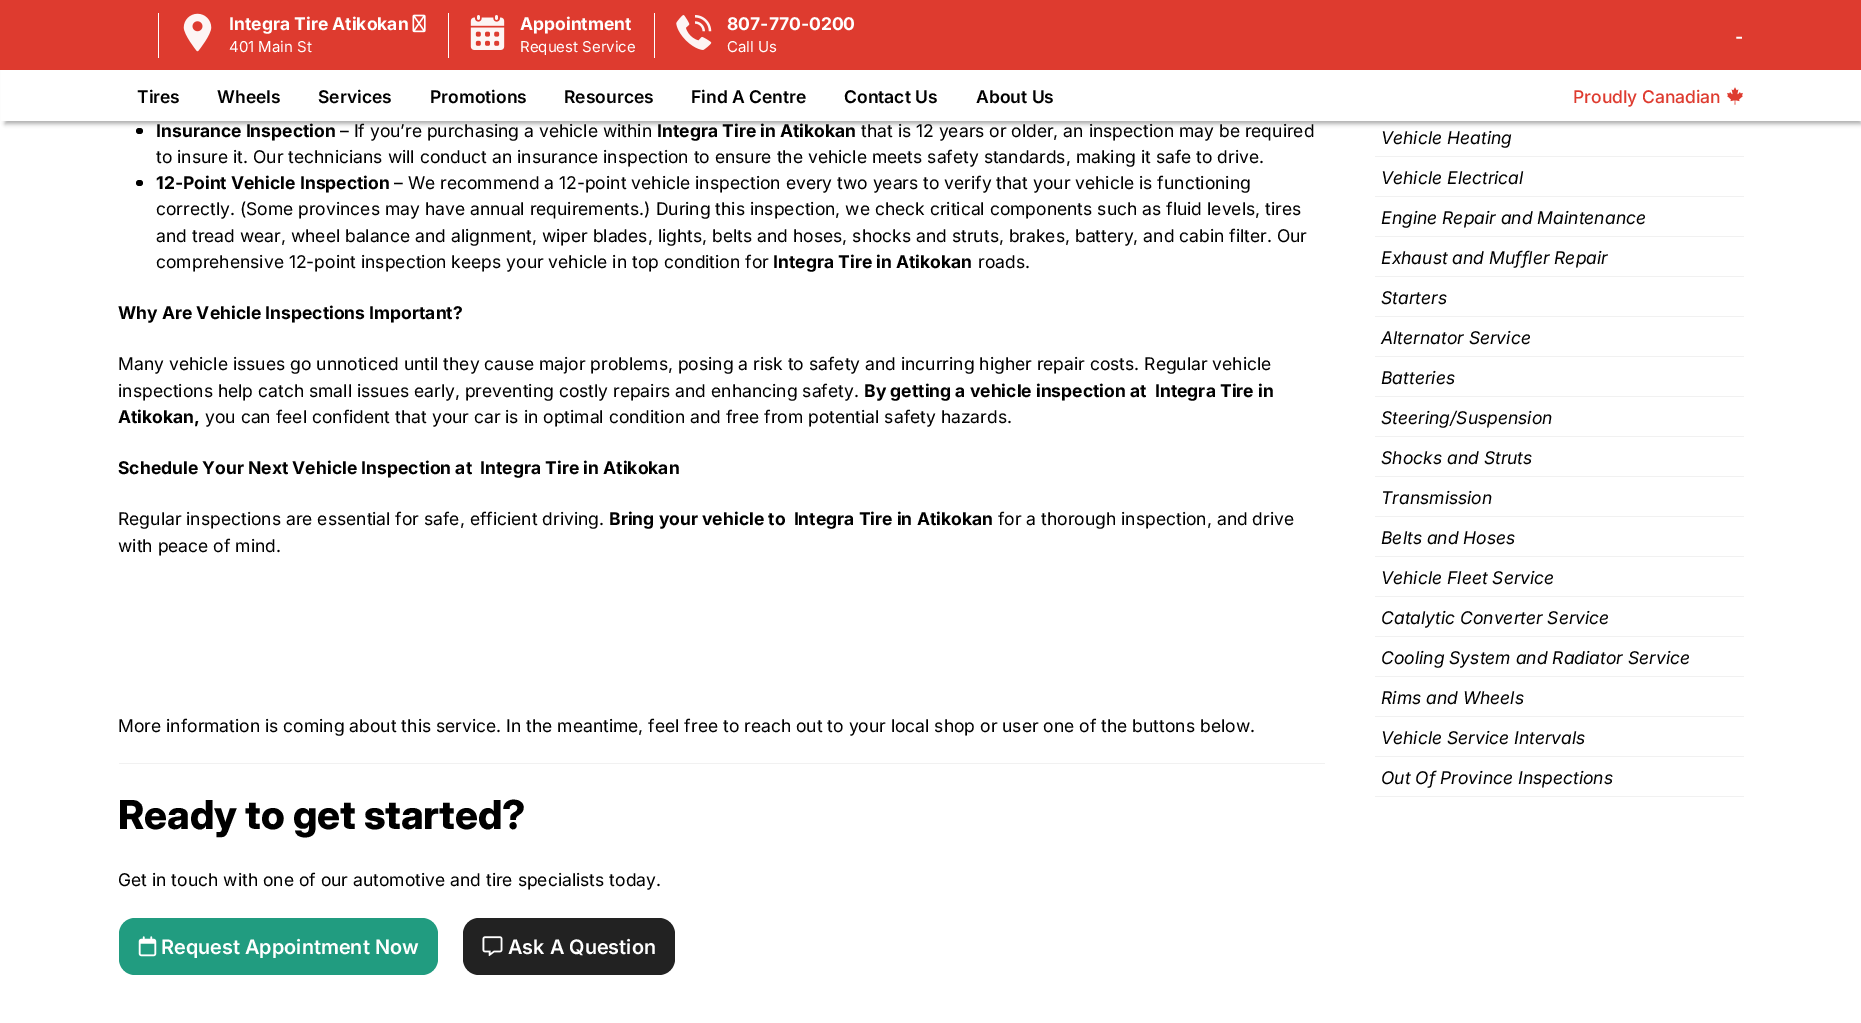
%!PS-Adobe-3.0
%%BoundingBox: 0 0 1861 1023
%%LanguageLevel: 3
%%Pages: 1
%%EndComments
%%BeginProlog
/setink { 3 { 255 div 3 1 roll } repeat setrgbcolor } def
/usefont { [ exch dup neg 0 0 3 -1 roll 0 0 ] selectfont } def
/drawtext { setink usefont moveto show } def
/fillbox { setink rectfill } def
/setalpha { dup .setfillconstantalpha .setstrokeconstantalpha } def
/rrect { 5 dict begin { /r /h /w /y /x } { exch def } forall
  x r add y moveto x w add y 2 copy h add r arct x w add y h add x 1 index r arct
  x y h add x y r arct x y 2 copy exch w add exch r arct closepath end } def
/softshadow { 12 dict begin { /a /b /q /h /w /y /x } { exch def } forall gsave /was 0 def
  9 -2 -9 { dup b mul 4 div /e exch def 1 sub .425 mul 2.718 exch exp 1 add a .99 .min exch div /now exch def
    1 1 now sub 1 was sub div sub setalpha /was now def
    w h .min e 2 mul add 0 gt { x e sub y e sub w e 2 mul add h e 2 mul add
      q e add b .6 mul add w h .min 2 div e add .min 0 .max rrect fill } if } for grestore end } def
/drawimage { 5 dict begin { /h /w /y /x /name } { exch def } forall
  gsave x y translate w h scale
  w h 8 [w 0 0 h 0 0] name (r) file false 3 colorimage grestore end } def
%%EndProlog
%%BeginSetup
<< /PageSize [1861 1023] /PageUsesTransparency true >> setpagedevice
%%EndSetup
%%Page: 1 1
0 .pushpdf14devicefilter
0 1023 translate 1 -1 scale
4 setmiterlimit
0 0 1861 1023 255 255 255 fillbox
0 0 0 setink
136 128 7 6 3 rrect fill
5 8 1856 116 0 2 0.31 softshadow
1 70 1860 51 255 255 255 fillbox
0 0 1861 70 222 59 47 fillbox
158 13 1 45 255 255 255 fillbox
(assets/img1.rgb) 183 13 29 39 drawimage
(Integra Tire Atikokan) 229 30 /Inter-Bold 17.5 255 255 255 drawtext
(assets/img2.rgb) 412 14 14 19 drawimage
(401 Main St) 229 52 /Inter-Regular 15 255 255 255 drawtext
448 13 1 45 255 255 255 fillbox
(assets/img3.rgb) 470 15 35 35 drawimage
(Appointment) 520 30 /Inter-Bold 17.5 255 255 255 drawtext
(Request Service) 520 52 /Inter-Regular 15 255 255 255 drawtext
654 13 1 45 255 255 255 fillbox
(assets/img4.rgb) 676 15 36 35 drawimage
(807-770-0200) 727 30 /Inter-Bold 17.5 255 255 255 drawtext
(Call Us) 727 52 /Inter-Regular 15 255 255 255 drawtext
(-) 1735 43 /Inter-Bold 17.5 255 255 255 drawtext
(Tires) 137 103 /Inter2-SemiBold 17.5 0 0 0 drawtext
(Wheels) 217 103 /Inter2-SemiBold 17.5 0 0 0 drawtext
(Services) 318 103 /Inter2-SemiBold 17.5 0 0 0 drawtext
(Promotions) 430 103 /Inter2-SemiBold 17.5 0 0 0 drawtext
(Resources) 564 103 /Inter2-SemiBold 17.5 0 0 0 drawtext
(Find A Centre) 691 103 /Inter2-SemiBold 17.5 0 0 0 drawtext
(Contact Us) 844 103 /Inter2-SemiBold 17.5 0 0 0 drawtext
(About Us) 976 103 /Inter2-SemiBold 17.5 0 0 0 drawtext
(Proudly Canadian) 1573 103 /Inter-Medium 17.5 222 59 47 drawtext
(assets/img5.rgb) 1727 87 16 18 drawimage
(Insurance Inspection) 156 137 /Inter-Bold 17.5 0 0 0 drawtext
(– If you’re purchasing a vehicle within) 340 137 /Inter-Regular 17.5 0 0 0 drawtext
(Integra Tire in Atikokan) 657 137 /Inter-Bold 17.5 0 0 0 drawtext
(that is 12 years or older, an inspection may be required) 861 137 /Inter-Regular 17.5 0 0 0 drawtext
(to insure it. Our technicians will conduct an insurance inspection to ensure the vehicle meets safety standards, making it safe to drive.) 156 163 /Inter-Regular 17.5 0 0 0 drawtext
136 180 7 6 3 rrect fill
(12-Point Vehicle Inspection) 156 189 /Inter-Bold 17.5 0 0 0 drawtext
(– We recommend a 12-point vehicle inspection every two years to verify that your vehicle is functioning) 394 189 /Inter-Regular 17.5 0 0 0 drawtext
(correctly. \(Some provinces may have annual requirements.\) During this inspection, we check critical components such as fluid levels, tires) 156 215 /Inter-Regular 17.5 0 0 0 drawtext
(and tread wear, wheel balance and alignment, wiper blades, lights, belts and hoses, shocks and struts, brakes, battery, and cabin filter. Our) 156 242 /Inter-Regular 17.5 0 0 0 drawtext
(comprehensive 12-point inspection keeps your vehicle in top condition for) 156 268 /Inter-Regular 17.5 0 0 0 drawtext
(Integra Tire in Atikokan) 773 268 /Inter-Bold 17.5 0 0 0 drawtext
(roads.) 978 268 /Inter-Regular 17.5 0 0 0 drawtext
(Why Are Vehicle Inspections Important?) 118 319 /Inter-Bold 17.5 0 0 0 drawtext
(Many vehicle issues go unnoticed until they cause major problems, posing a risk to safety and incurring higher repair costs. Regular vehicle) 118 370 /Inter-Regular 17.5 0 0 0 drawtext
(inspections help catch small issues early, preventing costly repairs and enhancing safety.) 118 397 /Inter-Regular 17.5 0 0 0 drawtext
(By getting a vehicle inspection at  Integra Tire in) 864 397 /Inter-Bold 17.5 0 0 0 drawtext
(Atikokan,) 118 423 /Inter-Bold 17.5 0 0 0 drawtext
(you can feel confident that your car is in optimal condition and free from potential safety hazards.) 205 423 /Inter-Regular 17.5 0 0 0 drawtext
(Schedule Your Next Vehicle Inspection at  Integra Tire in Atikokan) 118 474 /Inter-Bold 17.5 0 0 0 drawtext
(Regular inspections are essential for safe, efficient driving.) 118 525 /Inter-Regular 17.5 0 0 0 drawtext
(Bring your vehicle to  Integra Tire in Atikokan) 609 525 /Inter-Bold 17.5 0 0 0 drawtext
(for a thorough inspection, and drive) 998 525 /Inter-Regular 17.5 0 0 0 drawtext
(with peace of mind.) 118 552 /Inter-Regular 17.5 0 0 0 drawtext
(More information is coming about this service. In the meantime, feel free to reach out to your local shop or user one of the buttons below.) 118 732 /Inter-Regular 17.5 0 0 0 drawtext
119 763 1206 1 241 241 241 fillbox
(Ready to get started?) 118 829 /Inter-ExtraBold 40 0 0 0 drawtext
(Get in touch with one of our automotive and tire specialists today.) 118 886 /Inter-Regular 17.5 0 0 0 drawtext
33 156 128 setink
119 918 319 57 16 rrect fill
(assets/img6.rgb) 138 936 19 21 drawimage
(Request Appointment Now) 161 954 /Inter-SemiBold 20 255 255 255 drawtext
34 34 34 setink
463 918 212 57 16 rrect fill
(assets/img7.rgb) 482 936 21 21 drawimage
(Ask A Question) 508 954 /Inter-SemiBold 20 255 255 255 drawtext
1375 156 369 1 241 241 241 fillbox
(Vehicle Heating) 1381 144 /Inter-Italic 17.5 0 0 0 drawtext
1375 196 369 1 241 241 241 fillbox
(Vehicle Electrical) 1381 184 /Inter-Italic 17.5 0 0 0 drawtext
1375 236 369 1 241 241 241 fillbox
(Engine Repair and Maintenance) 1381 224 /Inter-Italic 17.5 0 0 0 drawtext
1375 276 369 1 241 241 241 fillbox
(Exhaust and Muffler Repair) 1381 264 /Inter-Italic 17.5 0 0 0 drawtext
1375 316 369 1 241 241 241 fillbox
(Starters) 1381 304 /Inter-Italic 17.5 0 0 0 drawtext
1375 356 369 1 241 241 241 fillbox
(Alternator Service) 1381 344 /Inter-Italic 17.5 0 0 0 drawtext
1375 396 369 1 241 241 241 fillbox
(Batteries) 1381 384 /Inter-Italic 17.5 0 0 0 drawtext
1375 436 369 1 241 241 241 fillbox
(Steering/Suspension) 1381 424 /Inter-Italic 17.5 0 0 0 drawtext
1375 476 369 1 241 241 241 fillbox
(Shocks and Struts) 1381 464 /Inter-Italic 17.5 0 0 0 drawtext
1375 516 369 1 241 241 241 fillbox
(Transmission) 1381 504 /Inter-Italic 17.5 0 0 0 drawtext
1375 556 369 1 241 241 241 fillbox
(Belts and Hoses) 1381 544 /Inter-Italic 17.5 0 0 0 drawtext
1375 596 369 1 241 241 241 fillbox
(Vehicle Fleet Service) 1381 584 /Inter-Italic 17.5 0 0 0 drawtext
1375 636 369 1 241 241 241 fillbox
(Catalytic Converter Service) 1381 624 /Inter-Italic 17.5 0 0 0 drawtext
1375 676 369 1 241 241 241 fillbox
(Cooling System and Radiator Service) 1381 664 /Inter-Italic 17.5 0 0 0 drawtext
1375 716 369 1 241 241 241 fillbox
(Rims and Wheels) 1381 704 /Inter-Italic 17.5 0 0 0 drawtext
1375 756 369 1 241 241 241 fillbox
(Vehicle Service Intervals) 1381 744 /Inter-Italic 17.5 0 0 0 drawtext
1375 796 369 1 241 241 241 fillbox
(Out Of Province Inspections) 1381 784 /Inter-Italic 17.5 0 0 0 drawtext
.poppdf14devicefilter showpage
%%EOF
